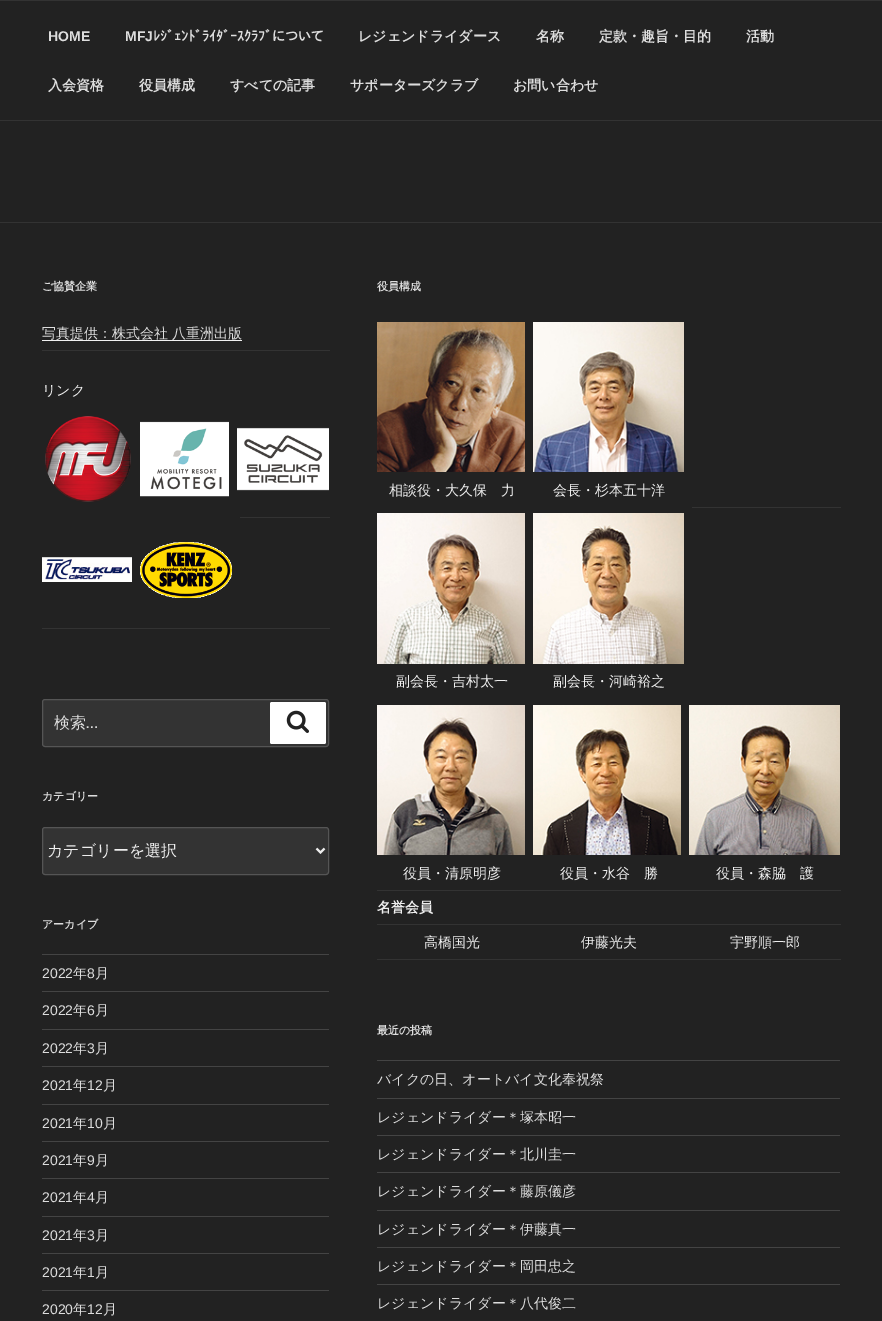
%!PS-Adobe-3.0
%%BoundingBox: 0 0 882 1321
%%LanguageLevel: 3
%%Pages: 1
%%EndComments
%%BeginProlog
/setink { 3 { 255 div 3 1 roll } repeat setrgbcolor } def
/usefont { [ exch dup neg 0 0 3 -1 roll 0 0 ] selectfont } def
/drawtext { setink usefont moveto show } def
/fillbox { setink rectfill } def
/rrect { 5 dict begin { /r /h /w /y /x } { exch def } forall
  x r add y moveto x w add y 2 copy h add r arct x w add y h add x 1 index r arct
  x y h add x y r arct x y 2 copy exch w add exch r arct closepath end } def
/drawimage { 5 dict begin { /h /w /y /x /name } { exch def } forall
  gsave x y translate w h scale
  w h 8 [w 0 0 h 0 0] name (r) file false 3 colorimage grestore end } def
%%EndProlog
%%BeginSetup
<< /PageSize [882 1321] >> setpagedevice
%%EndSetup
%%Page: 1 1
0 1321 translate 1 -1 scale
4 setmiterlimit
0 0 882 1321 34 34 34 fillbox
0 0 882 1 51 51 51 fillbox
0 120 882 1 51 51 51 fillbox
(HOME) 48 41 /LiberationSans-Bold 14 221 221 221 drawtext
(MFJ) 125 41 /LiberationSans-Bold 14 221 221 221 drawtext
(ﾚｼﾞｪﾝﾄﾞﾗｲﾀﾞｰｽｸﾗﾌﾞについて) 153 41 /IPAPGothic-Bold 14 221 221 221 drawtext
(レジェンドライダース) 358 41 /WenQuanYiZenHei-Bold 14 221 221 221 drawtext
(名称) 536 41 /WenQuanYiZenHei-Bold 14 221 221 221 drawtext
(定款・趣旨・目的) 599 41 /WenQuanYiZenHei-Bold 14 221 221 221 drawtext
(活動) 746 41 /WenQuanYiZenHei-Bold 14 221 221 221 drawtext
(入会資格) 48 90 /WenQuanYiZenHei-Bold 14 221 221 221 drawtext
(役員構成) 139 90 /WenQuanYiZenHei-Bold 14 221 221 221 drawtext
(すべての記事) 230 90 /WenQuanYiZenHei-Bold 14 221 221 221 drawtext
(サポーターズクラブ) 350 90 /WenQuanYiZenHei-Bold 14 221 221 221 drawtext
(お問い合わせ) 513 90 /WenQuanYiZenHei-Bold 14 221 221 221 drawtext
0 222 882 1 51 51 51 fillbox
(ご協賛企業) 42 290 /WenQuanYiZenHei-Bold 11 221 221 221 drawtext
42 350 288 1 51 51 51 fillbox
42 340 200 1 240 240 240 fillbox
(写真提供：株式会社 八重洲出版) 42 338 /WenQuanYiZenHei-Medium 14 221 221 221 drawtext
(リンク) 42 395 /WenQuanYiZenHei-Medium 14 238 238 238 drawtext
240 517 90 1 51 51 51 fillbox
(assets/img1.rgb) 45 416 86 86 drawimage
(assets/img2.rgb) 140 421 89 76 drawimage
(assets/img3.rgb) 237 427 92 64 drawimage
42 628 288 1 51 51 51 fillbox
(assets/img4.rgb) 42 557 90 25 drawimage
(assets/img5.rgb) 140 542 92 56 drawimage
42.5 699.5 286 47 2.5 rrect gsave fill grestore
85 85 85 setink
stroke
(検索) 54 728 /WenQuanYiZenHei-Medium 16 221 221 221 drawtext
(…) 86 728 /LibreFranklin-Regular 16 221 221 221 drawtext
255 255 255 setink
270 702 56 42 2 rrect fill
(assets/img6.rgb) 286 710 23 23 drawimage
(カテゴリー) 42 800 /WenQuanYiZenHei-Bold 11 221 221 221 drawtext
51 51 51 setink
42.5 827.5 286 47 2.5 rrect gsave fill grestore
85 85 85 setink
stroke
238 238 238 setink
2 setlinewidth
316.5 848.5 moveto 320.5 852.5 lineto 324.5 848.5 lineto stroke
(カテゴリーを選択) 47 856 /WenQuanYiZenHei-Medium 16 238 238 238 drawtext
(アーカイブ) 42 928 /WenQuanYiZenHei-Bold 11 221 221 221 drawtext
42 954 287 1 68 68 68 fillbox
42 991 287 1 68 68 68 fillbox
(2022) 42 978 /LiberationSans-Regular 14 221 221 221 drawtext
(年) 73 978 /WenQuanYiZenHei-Medium 14 221 221 221 drawtext
(8) 87 978 /LiberationSans-Regular 14 221 221 221 drawtext
(月) 95 978 /WenQuanYiZenHei-Medium 14 221 221 221 drawtext
42 1029 287 1 68 68 68 fillbox
(2022) 42 1015 /LiberationSans-Regular 14 221 221 221 drawtext
(年) 73 1015 /WenQuanYiZenHei-Medium 14 221 221 221 drawtext
(6) 87 1015 /LiberationSans-Regular 14 221 221 221 drawtext
(月) 95 1015 /WenQuanYiZenHei-Medium 14 221 221 221 drawtext
42 1066 287 1 68 68 68 fillbox
(2022) 42 1053 /LiberationSans-Regular 14 221 221 221 drawtext
(年) 73 1053 /WenQuanYiZenHei-Medium 14 221 221 221 drawtext
(3) 87 1053 /LiberationSans-Regular 14 221 221 221 drawtext
(月) 95 1053 /WenQuanYiZenHei-Medium 14 221 221 221 drawtext
42 1104 287 1 68 68 68 fillbox
(2021) 42 1090 /LiberationSans-Regular 14 221 221 221 drawtext
(年) 73 1090 /WenQuanYiZenHei-Medium 14 221 221 221 drawtext
(12) 87 1090 /LiberationSans-Regular 14 221 221 221 drawtext
(月) 103 1090 /WenQuanYiZenHei-Medium 14 221 221 221 drawtext
42 1141 287 1 68 68 68 fillbox
(2021) 42 1128 /LiberationSans-Regular 14 221 221 221 drawtext
(年) 73 1128 /WenQuanYiZenHei-Medium 14 221 221 221 drawtext
(10) 87 1128 /LiberationSans-Regular 14 221 221 221 drawtext
(月) 103 1128 /WenQuanYiZenHei-Medium 14 221 221 221 drawtext
42 1178 287 1 68 68 68 fillbox
(2021) 42 1165 /LiberationSans-Regular 14 221 221 221 drawtext
(年) 73 1165 /WenQuanYiZenHei-Medium 14 221 221 221 drawtext
(9) 87 1165 /LiberationSans-Regular 14 221 221 221 drawtext
(月) 95 1165 /WenQuanYiZenHei-Medium 14 221 221 221 drawtext
42 1216 287 1 68 68 68 fillbox
(2021) 42 1202 /LiberationSans-Regular 14 221 221 221 drawtext
(年) 73 1202 /WenQuanYiZenHei-Medium 14 221 221 221 drawtext
(4) 87 1202 /LiberationSans-Regular 14 221 221 221 drawtext
(月) 95 1202 /WenQuanYiZenHei-Medium 14 221 221 221 drawtext
42 1253 287 1 68 68 68 fillbox
(2021) 42 1240 /LiberationSans-Regular 14 221 221 221 drawtext
(年) 73 1240 /WenQuanYiZenHei-Medium 14 221 221 221 drawtext
(3) 87 1240 /LiberationSans-Regular 14 221 221 221 drawtext
(月) 95 1240 /WenQuanYiZenHei-Medium 14 221 221 221 drawtext
42 1290 287 1 68 68 68 fillbox
(2021) 42 1277 /LiberationSans-Regular 14 221 221 221 drawtext
(年) 73 1277 /WenQuanYiZenHei-Medium 14 221 221 221 drawtext
(1) 87 1277 /LiberationSans-Regular 14 221 221 221 drawtext
(月) 95 1277 /WenQuanYiZenHei-Medium 14 221 221 221 drawtext
(2020) 42 1314 /LiberationSans-Regular 14 221 221 221 drawtext
(年) 73 1314 /WenQuanYiZenHei-Medium 14 221 221 221 drawtext
(12) 87 1314 /LiberationSans-Regular 14 221 221 221 drawtext
(月) 103 1314 /WenQuanYiZenHei-Medium 14 221 221 221 drawtext
(役員構成) 377 290 /WenQuanYiZenHei-Bold 11 221 221 221 drawtext
692 507 149 1 51 51 51 fillbox
(assets/img7.rgb) 377 322 148 150 drawimage
(相談役・大久保　力) 389 495 /WenQuanYiZenHei-Medium 14 238 238 238 drawtext
(assets/img8.rgb) 533 322 151 150 drawimage
(会長・杉本五十洋) 553 495 /WenQuanYiZenHei-Medium 14 238 238 238 drawtext
(assets/img9.rgb) 377 513 148 151 drawimage
(副会長・吉村太一) 396 686 /WenQuanYiZenHei-Medium 14 238 238 238 drawtext
(assets/img10.rgb) 533 513 151 151 drawimage
(副会長・河崎裕之) 553 686 /WenQuanYiZenHei-Medium 14 238 238 238 drawtext
377 890 464 1 51 51 51 fillbox
(assets/img11.rgb) 377 705 148 150 drawimage
(役員・清原明彦) 403 878 /WenQuanYiZenHei-Medium 14 238 238 238 drawtext
(assets/img12.rgb) 533 705 148 150 drawimage
(役員・水谷　勝) 560 878 /WenQuanYiZenHei-Medium 14 238 238 238 drawtext
(assets/img13.rgb) 689 705 151 150 drawimage
(役員・森脇　護) 716 878 /WenQuanYiZenHei-Medium 14 238 238 238 drawtext
377 924 464 1 51 51 51 fillbox
(名誉会員) 377 912 /WenQuanYiZenHei-Bold 14 238 238 238 drawtext
377 959 464 1 51 51 51 fillbox
(高橋国光) 424 947 /WenQuanYiZenHei-Medium 14 238 238 238 drawtext
(伊藤光夫) 581 947 /WenQuanYiZenHei-Medium 14 238 238 238 drawtext
(宇野順一郎) 730 947 /WenQuanYiZenHei-Medium 14 238 238 238 drawtext
(最近の投稿) 377 1034 /WenQuanYiZenHei-Bold 11 221 221 221 drawtext
377 1060 463 1 68 68 68 fillbox
377 1098 463 1 68 68 68 fillbox
(バイクの日、オートバイ文化奉祝祭) 377 1084 /WenQuanYiZenHei-Medium 14 221 221 221 drawtext
377 1135 463 1 68 68 68 fillbox
(レジェンドライダー＊塚本昭一) 377 1122 /WenQuanYiZenHei-Medium 14 221 221 221 drawtext
377 1172 463 1 68 68 68 fillbox
(レジェンドライダー＊北川圭一) 377 1159 /WenQuanYiZenHei-Medium 14 221 221 221 drawtext
377 1210 463 1 68 68 68 fillbox
(レジェンドライダー＊藤原儀彦) 377 1196 /WenQuanYiZenHei-Medium 14 221 221 221 drawtext
377 1247 463 1 68 68 68 fillbox
(レジェンドライダー＊伊藤真一) 377 1234 /WenQuanYiZenHei-Medium 14 221 221 221 drawtext
377 1284 463 1 68 68 68 fillbox
(レジェンドライダー＊岡田忠之) 377 1271 /WenQuanYiZenHei-Medium 14 221 221 221 drawtext
(レジェンドライダー＊八代俊二) 377 1308 /WenQuanYiZenHei-Medium 14 221 221 221 drawtext
showpage
%%EOF
